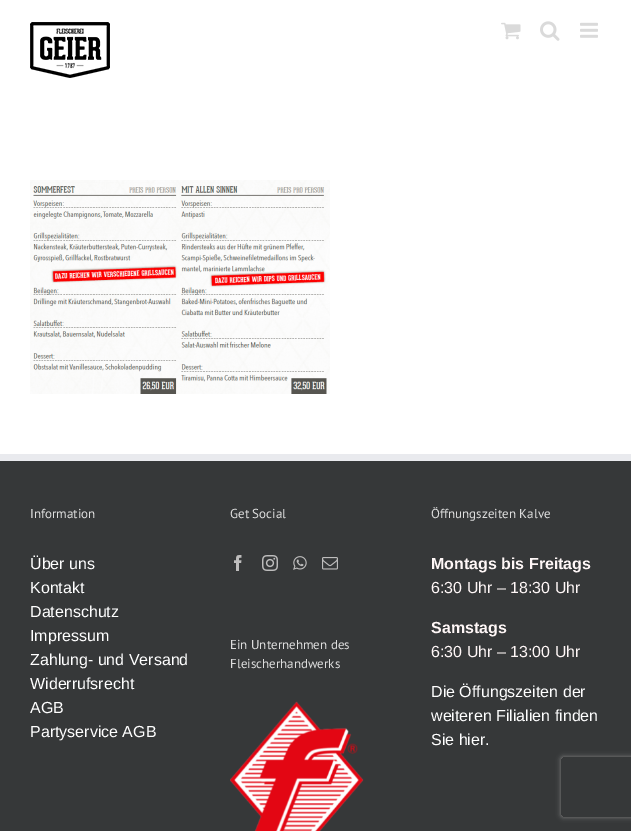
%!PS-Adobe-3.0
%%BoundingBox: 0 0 631 831
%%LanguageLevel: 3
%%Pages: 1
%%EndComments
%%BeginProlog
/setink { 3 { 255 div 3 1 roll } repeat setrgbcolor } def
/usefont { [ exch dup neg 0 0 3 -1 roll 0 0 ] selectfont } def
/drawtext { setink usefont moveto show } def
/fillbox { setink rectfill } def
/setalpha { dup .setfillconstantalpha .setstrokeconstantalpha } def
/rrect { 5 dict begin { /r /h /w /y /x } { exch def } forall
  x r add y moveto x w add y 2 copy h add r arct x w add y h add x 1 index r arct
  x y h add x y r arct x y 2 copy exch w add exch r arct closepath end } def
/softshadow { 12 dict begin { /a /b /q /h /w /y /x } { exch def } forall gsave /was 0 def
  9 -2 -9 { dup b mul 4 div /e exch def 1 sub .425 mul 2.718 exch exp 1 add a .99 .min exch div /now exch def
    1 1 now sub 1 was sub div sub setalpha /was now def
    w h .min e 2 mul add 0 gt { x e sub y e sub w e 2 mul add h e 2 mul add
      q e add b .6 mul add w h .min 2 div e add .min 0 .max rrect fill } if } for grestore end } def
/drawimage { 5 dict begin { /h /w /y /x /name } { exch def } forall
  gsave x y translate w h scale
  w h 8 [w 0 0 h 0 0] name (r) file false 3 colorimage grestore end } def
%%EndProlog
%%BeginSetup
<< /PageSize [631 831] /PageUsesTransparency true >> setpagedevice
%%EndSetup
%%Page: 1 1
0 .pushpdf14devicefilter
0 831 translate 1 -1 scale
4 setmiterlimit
0 0 631 831 255 255 255 fillbox
(assets/img1.rgb) 30 22 80 56 drawimage
(assets/img2.rgb) 501 22 20 18 drawimage
(assets/img3.rgb) 540 21 20 20 drawimage
(assets/img4.rgb) 580 22 18 16 drawimage
(assets/img5.rgb) 30 180 300 214 drawimage
0 461 631 370 54 56 57 fillbox
0 454 631 7 233 234 238 fillbox
(Information) 30 518 /PTSans-Regular 13 221 221 221 drawtext
(Über uns) 30 569 /LiberationSans-Regular 16 255 255 255 drawtext
(Kontakt) 30 593 /LiberationSans-Regular 16 255 255 255 drawtext
(Datenschutz) 30 617 /LiberationSans-Regular 16 255 255 255 drawtext
(Impressum) 30 641 /LiberationSans-Regular 16 255 255 255 drawtext
(Zahlung- und Versand) 30 665 /LiberationSans-Regular 16 255 255 255 drawtext
(Widerrufsrecht) 30 689 /LiberationSans-Regular 16 255 255 255 drawtext
(AGB) 30 713 /LiberationSans-Regular 16 255 255 255 drawtext
(Partyservice AGB) 30 737 /LiberationSans-Regular 16 255 255 255 drawtext
(Get Social) 230 518 /PTSans-Regular 13 221 221 221 drawtext
(assets/img6.rgb) 234 555 8 16 drawimage
(assets/img7.rgb) 262 555 16 16 drawimage
(assets/img8.rgb) 293 556 14 14 drawimage
(assets/img9.rgb) 322 557 16 13 drawimage
(Ein Unternehmen des) 230 649 /PTSans-Regular 13 221 221 221 drawtext
(Fleischerhandwerks) 230 668 /PTSans-Regular 13 221 221 221 drawtext
(assets/img10.rgb) 230 701 134 130 drawimage
(Öffnungszeiten Kalve) 431 518 /PTSans-Regular 13 221 221 221 drawtext
(Montags bis Freitags) 431 569 /LiberationSans-Bold 16 255 247 247 drawtext
(6:30 Uhr – 18:30 Uhr) 431 593 /LiberationSans-Regular 16 255 247 247 drawtext
(Samstags) 431 633 /LiberationSans-Bold 16 255 247 247 drawtext
(6:30 Uhr – 13:00 Uhr) 431 657 /LiberationSans-Regular 16 255 247 247 drawtext
(Die Öffungszeiten der) 431 697 /LiberationSans-Regular 16 255 255 255 drawtext
(weiteren Filialien finden) 431 721 /LiberationSans-Regular 16 255 255 255 drawtext
(Sie hier.) 431 745 /LiberationSans-Regular 16 255 255 255 drawtext
gsave
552 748 moveto 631 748 lineto 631 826 lineto 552 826 lineto closepath 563 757 moveto 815 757 lineto 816 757 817 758 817 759 curveto 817 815 lineto 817 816 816 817 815 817 curveto 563 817 lineto 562 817 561 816 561 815 curveto 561 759 lineto 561 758 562 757 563 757 curveto closepath eoclip newpath
128 128 128 setink
561 757 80 60 2 2.5 1 softshadow
grestore
.poppdf14devicefilter showpage
%%EOF
